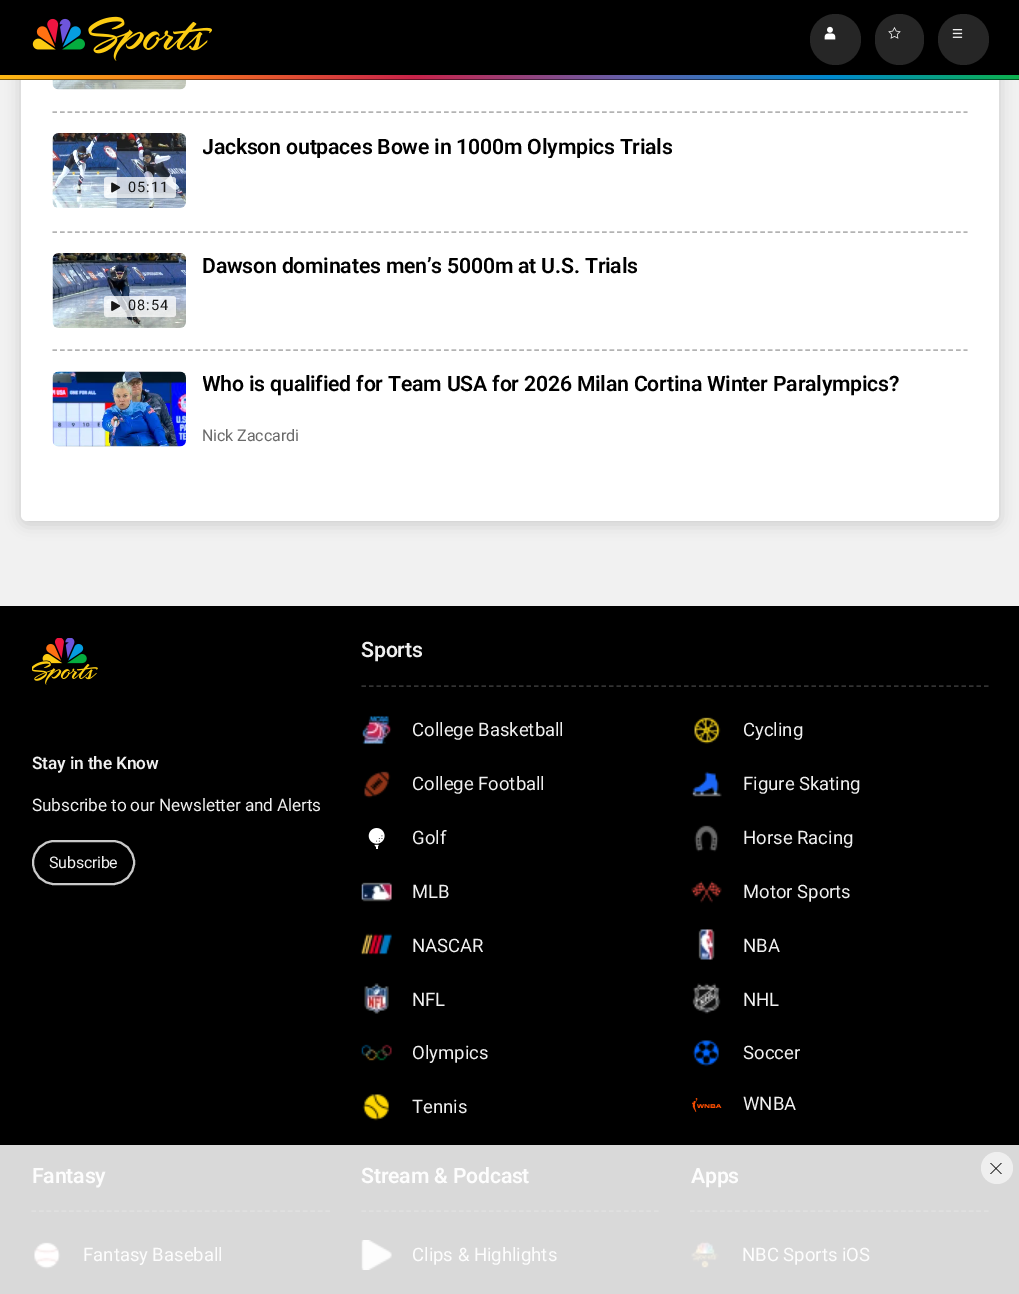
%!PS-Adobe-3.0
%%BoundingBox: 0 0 1019 1294
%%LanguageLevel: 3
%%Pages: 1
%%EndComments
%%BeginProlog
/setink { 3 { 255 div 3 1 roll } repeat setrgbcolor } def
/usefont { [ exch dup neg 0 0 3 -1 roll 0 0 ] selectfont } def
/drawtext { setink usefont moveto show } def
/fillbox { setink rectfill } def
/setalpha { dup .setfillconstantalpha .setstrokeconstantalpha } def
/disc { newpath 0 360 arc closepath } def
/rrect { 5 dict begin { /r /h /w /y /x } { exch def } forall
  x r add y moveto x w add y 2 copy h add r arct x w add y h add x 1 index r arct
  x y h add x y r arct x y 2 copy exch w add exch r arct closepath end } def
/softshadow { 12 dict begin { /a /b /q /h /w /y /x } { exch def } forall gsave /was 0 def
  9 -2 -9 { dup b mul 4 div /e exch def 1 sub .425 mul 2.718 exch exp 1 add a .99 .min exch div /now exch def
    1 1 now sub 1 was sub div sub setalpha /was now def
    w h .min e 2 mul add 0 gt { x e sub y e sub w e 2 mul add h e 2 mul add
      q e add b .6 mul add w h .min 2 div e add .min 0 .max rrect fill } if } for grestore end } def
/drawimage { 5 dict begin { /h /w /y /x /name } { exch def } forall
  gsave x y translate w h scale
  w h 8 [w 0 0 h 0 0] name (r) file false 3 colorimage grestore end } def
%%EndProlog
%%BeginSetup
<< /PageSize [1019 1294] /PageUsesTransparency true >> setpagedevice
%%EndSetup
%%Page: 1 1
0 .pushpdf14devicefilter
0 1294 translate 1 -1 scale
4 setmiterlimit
0 0 1019 1294 241 241 241 fillbox
0 0 0 setink
21 -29 978 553 6 7.5 0.15 softshadow
255 255 255 setink
21 -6 978 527 6 rrect fill
0 0 1019 80 0 0 0 fillbox
(assets/img1.rgb) 32 16 180 45 drawimage
38 38 38 setink
835.5 39.5 25.5 disc fill
(assets/img2.rgb) 824 26 12 14 drawimage
875 14 49 51 24.5 rrect fill
(assets/img3.rgb) 888 27 13 12 drawimage
963.5 39.5 25.5 disc fill
(assets/img4.rgb) 952 29 11 9 drawimage
(assets/img5.rgb) 0 75 1019 5 drawimage
(assets/img6.rgb) 52 80 134 10 drawimage
179 179 179 setink
1.5 setlinewidth
[4.5 3.03] 0 setdash
52.5 112 moveto 967.5 112 lineto stroke
gsave
203 134 765 24 rectclip
/Roboto-SemiBold 21.25 usefont
0 0 0 setink
202 154 moveto -0.2 0 (Jackson outpaces Bowe in 1000m Olympics Trials) ashow
grestore
(assets/img7.rgb) 52 133 134 75 drawimage
0.75 setalpha
255 255 255 setink
104 177 72 21 3 rrect fill
1 setalpha
(assets/img8.rgb) 111 182 10 11 drawimage
/Roboto-Regular 14.5 usefont
24 24 24 setink
128 192 moveto 1 0 (05:11) ashow
179 179 179 setink
52.5 232 moveto 967.5 232 lineto stroke
/Roboto-SemiBold 21.25 usefont
0 0 0 setink
202 273 moveto -0.2 0 (Dawson dominates men’s 5000m at U.S. Trials) ashow
(assets/img9.rgb) 52 253 134 75 drawimage
0.75 setalpha
255 255 255 setink
104 296 72 21 3 rrect fill
1 setalpha
(assets/img10.rgb) 111 301 10 10 drawimage
/Roboto-Regular 14.5 usefont
24 24 24 setink
128 310 moveto 1 0 (08:54) ashow
179 179 179 setink
52.5 350 moveto 967.5 350 lineto stroke
(assets/img11.rgb) 52 371 134 76 drawimage
gsave
203 372 765 24 rectclip
/Roboto-SemiBold 21.25 usefont
0 0 0 setink
202 391 moveto -0.2 0 (Who is qualified for Team USA for 2026 Milan Cortina Winter Paralympics?) ashow
grestore
/Roboto-Regular 16 usefont
106 106 106 setink
202 441 moveto -0.1 0 (Nick Zaccardi) ashow
0 606 1019 539 0 0 0 fillbox
0 1145 1019 149 217 217 217 fillbox
(assets/img12.rgb) 32 638 66 47 drawimage
/Roboto-SemiBold 17.25 usefont
240 240 240 setink
32 769 moveto -0.15 0 (Stay in the Know) ashow
/Roboto-Regular 17.25 usefont
32 811 moveto -0.15 0 (Subscribe to our Newsletter and Alerts) ashow
201 201 201 setink
2 setlinewidth
[] 0 setdash
33 841 101 43 21.5 rrect stroke
/Roboto-Regular 16 usefont
240 240 240 setink
49 868 moveto -0.25 0 (Subscribe) ashow
51 51 51 setink
1.5 setlinewidth
[4.5 3] 0 setdash
361.5 686 moveto 988.5 686 lineto stroke
/Roboto-SemiBold 21.25 usefont
240 240 240 setink
361 657 moveto -0.2 0 (Sports) ashow
(assets/img13.rgb) 362 715 30 30 drawimage
(College Basketball) 412 736 /Roboto-Regular 18.5 240 240 240 drawtext
(assets/img14.rgb) 694 717 27 27 drawimage
(Cycling) 743 736 /Roboto-Regular 18.5 240 240 240 drawtext
(assets/img15.rgb) 364 771 27 27 drawimage
(College Football) 412 790 /Roboto-Regular 18.5 240 240 240 drawtext
(assets/img16.rgb) 691 771 31 26 drawimage
(Figure Skating) 743 790 /Roboto-Regular 18.5 240 240 240 drawtext
(assets/img17.rgb) 368 828 17 21 drawimage
(Golf) 412 844 /Roboto-Regular 18.5 240 240 240 drawtext
(assets/img18.rgb) 694 825 25 27 drawimage
(Horse Racing) 743 844 /Roboto-Regular 18.5 240 240 240 drawtext
(assets/img19.rgb) 361 882 31 20 drawimage
(MLB) 412 898 /Roboto-Regular 18.5 240 240 240 drawtext
(assets/img20.rgb) 691 881 31 22 drawimage
(Motor Sports) 743 898 /Roboto-Regular 18.5 240 240 240 drawtext
(assets/img21.rgb) 361 933 31 22 drawimage
(NASCAR) 412 952 /Roboto-Regular 18.5 240 240 240 drawtext
(assets/img22.rgb) 698 929 17 31 drawimage
(NBA) 743 952 /Roboto-Regular 18.5 240 240 240 drawtext
(assets/img23.rgb) 364 983 25 31 drawimage
(NFL) 412 1006 /Roboto-Regular 18.5 240 240 240 drawtext
(assets/img24.rgb) 692 983 29 31 drawimage
(NHL) 743 1006 /Roboto-Regular 18.5 240 240 240 drawtext
(assets/img25.rgb) 361 1044 31 17 drawimage
(Olympics) 412 1059 /Roboto-Regular 18.5 240 240 240 drawtext
(assets/img26.rgb) 692 1040 27 27 drawimage
(Soccer) 743 1059 /Roboto-Regular 18.5 240 240 240 drawtext
(assets/img27.rgb) 362 1094 27 27 drawimage
(Tennis) 412 1113 /Roboto-Regular 18.5 240 240 240 drawtext
(assets/img28.rgb) 692 1098 30 14 drawimage
(WNBA) 743 1110 /Roboto-Regular 18.5 240 240 240 drawtext
224 224 224 setink
[4.5 3.04] 0 setdash
31.5 1211 moveto 330 1211 lineto stroke
/Roboto-SemiBold 21.25 usefont
253 253 253 setink
32 1183 moveto -0.2 0 (Fantasy) ashow
(assets/img29.rgb) 34 1242 27 27 drawimage
(Fantasy Baseball) 83 1261 /Roboto-Regular 18.5 253 253 253 drawtext
224 224 224 setink
[4.5 3] 0 setdash
361.5 1211 moveto 658.5 1211 lineto stroke
/Roboto-SemiBold 21.25 usefont
253 253 253 setink
361 1183 moveto -0.2 0 (Stream & Podcast) ashow
(assets/img30.rgb) 361 1240 31 30 drawimage
(Clips & Highlights) 412 1261 /Roboto-Regular 18.5 253 253 253 drawtext
224 224 224 setink
[4.5 3.04] 0 setdash
690 1211 moveto 988.5 1211 lineto stroke
/Roboto-SemiBold 21.25 usefont
253 253 253 setink
691 1183 moveto -0.2 0 (Apps) ashow
(assets/img31.rgb) 690 1240 30 30 drawimage
(NBC Sports iOS) 742 1261 /Roboto-Regular 18.5 253 253 253 drawtext
239 239 239 setink
997 1168 16 disc fill
(assets/img32.rgb) 990 1163 12 11 drawimage
.poppdf14devicefilter showpage
%%EOF
